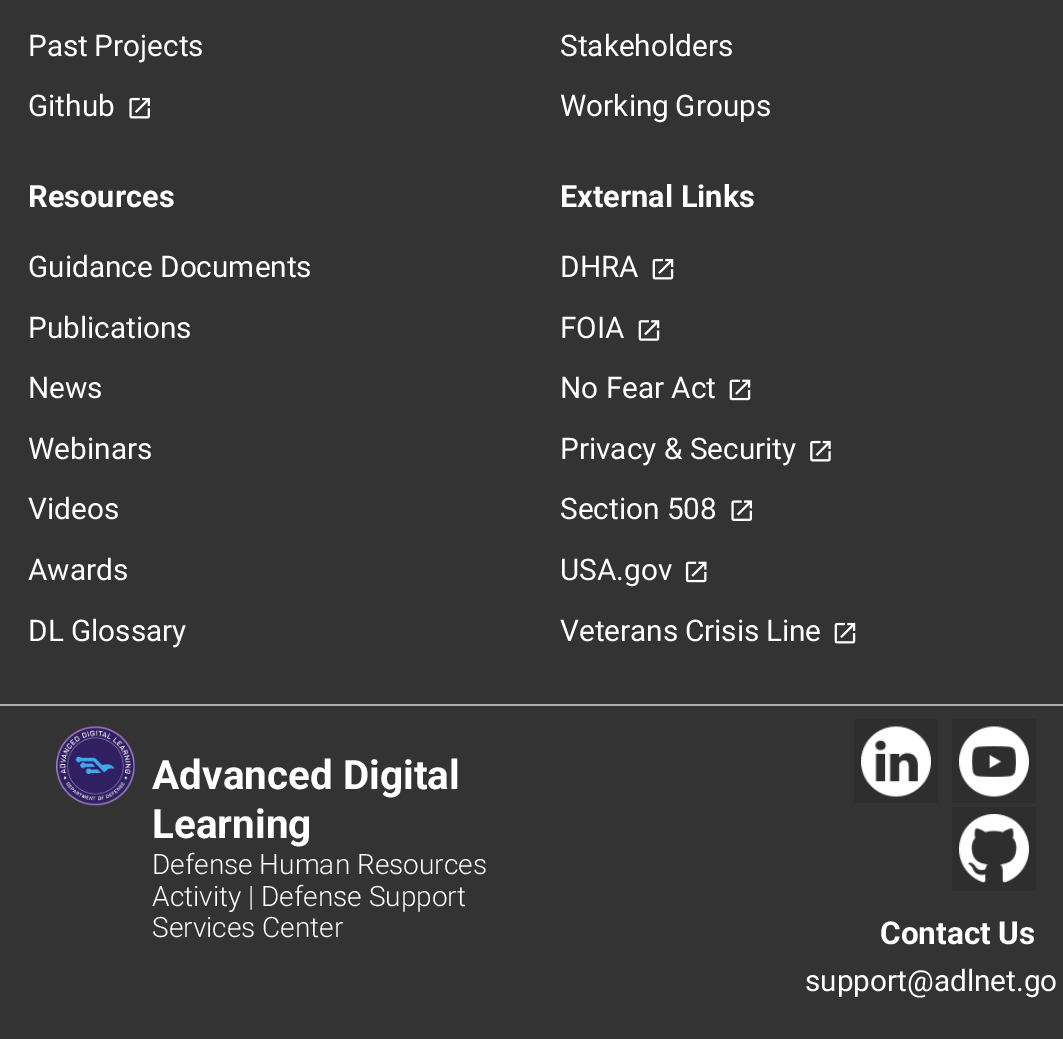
%!PS-Adobe-3.0
%%BoundingBox: 0 0 1063 1039
%%LanguageLevel: 3
%%Pages: 1
%%EndComments
%%BeginProlog
/setink { 3 { 255 div 3 1 roll } repeat setrgbcolor } def
/usefont { [ exch dup neg 0 0 3 -1 roll 0 0 ] selectfont } def
/drawtext { setink usefont moveto show } def
/fillbox { setink rectfill } def
/drawimage { 5 dict begin { /h /w /y /x /name } { exch def } forall
  gsave x y translate w h scale
  w h 8 [w 0 0 h 0 0] name (r) file false 3 colorimage grestore end } def
%%EndProlog
%%BeginSetup
<< /PageSize [1063 1039] >> setpagedevice
%%EndSetup
%%Page: 1 1
0 1039 translate 1 -1 scale
4 setmiterlimit
0 0 1063 1039 51 51 51 fillbox
0 704 1063 2 169 174 177 fillbox
/Roboto-Regular 29.75 usefont
255 255 255 setink
28 56 moveto -1 0 32 (Past Projects) widthshow
(Github) 28 116 /Roboto-Regular 29.75 255 255 255 drawtext
(assets/img1.rgb) 129 97 21 22 drawimage
(Stakeholders) 560 56 /Roboto-Regular 29.75 255 255 255 drawtext
560 116 moveto -1 0 32 (Working Groups) widthshow
(Resources) 28 207 /Roboto-Bold 30.75 255 255 255 drawtext
(Guidance Documents) 28 277 /Roboto-Regular 29.75 255 255 255 drawtext
(Publications) 28 338 /Roboto-Regular 29.75 255 255 255 drawtext
(News) 28 398 /Roboto-Regular 29.75 255 255 255 drawtext
(Webinars) 28 459 /Roboto-Regular 29.75 255 255 255 drawtext
(Videos) 28 519 /Roboto-Regular 29.75 255 255 255 drawtext
(Awards) 28 580 /Roboto-Regular 29.75 255 255 255 drawtext
(DL Glossary) 28 641 /Roboto-Regular 29.75 255 255 255 drawtext
(External Links) 560 207 /Roboto-Bold 30.75 255 255 255 drawtext
(DHRA) 560 277 /Roboto-Regular 29.75 255 255 255 drawtext
(assets/img2.rgb) 652 258 22 22 drawimage
(FOIA) 560 338 /Roboto-Regular 29.75 255 255 255 drawtext
(assets/img3.rgb) 638 320 22 21 drawimage
(No Fear Act) 560 398 /Roboto-Regular 29.75 255 255 255 drawtext
(assets/img4.rgb) 729 379 22 22 drawimage
(Privacy & Security) 560 459 /Roboto-Regular 29.75 255 255 255 drawtext
(assets/img5.rgb) 810 440 21 22 drawimage
(Section 508) 560 519 /Roboto-Regular 29.75 255 255 255 drawtext
(assets/img6.rgb) 731 500 21 21 drawimage
(USA.gov) 560 580 /Roboto-Regular 29.75 255 255 255 drawtext
(assets/img7.rgb) 685 561 22 22 drawimage
560 641 moveto -1 0 32 (Veterans Crisis Line) widthshow
(assets/img2.rgb) 834 622 22 22 drawimage
(assets/img8.rgb) 56 726 79 80 drawimage
(Advanced Digital) 152 789 /Roboto-Bold 40.5 255 255 255 drawtext
(Learning) 152 838 /Roboto-Bold 40.5 255 255 255 drawtext
(Defense Human Resources) 152 874 /Roboto-Light 28 255 255 255 drawtext
(Activity | Defense Support) 152 906 /Roboto-Light 28 255 255 255 drawtext
(Services Center) 152 937 /Roboto-Light 28 255 255 255 drawtext
854 719 84 84 46 46 46 fillbox
(assets/img9.rgb) 861 726 70 71 drawimage
952 719 84 84 46 46 46 fillbox
(assets/img10.rgb) 959 726 70 71 drawimage
952 807 84 84 46 46 46 fillbox
(assets/img11.rgb) 959 814 70 69 drawimage
(Contact Us) 880 944 /Roboto-Bold 31.5 255 255 255 drawtext
(support@adlnet.go) 805 991 /Roboto-Regular 29.75 255 255 255 drawtext
showpage
%%EOF
